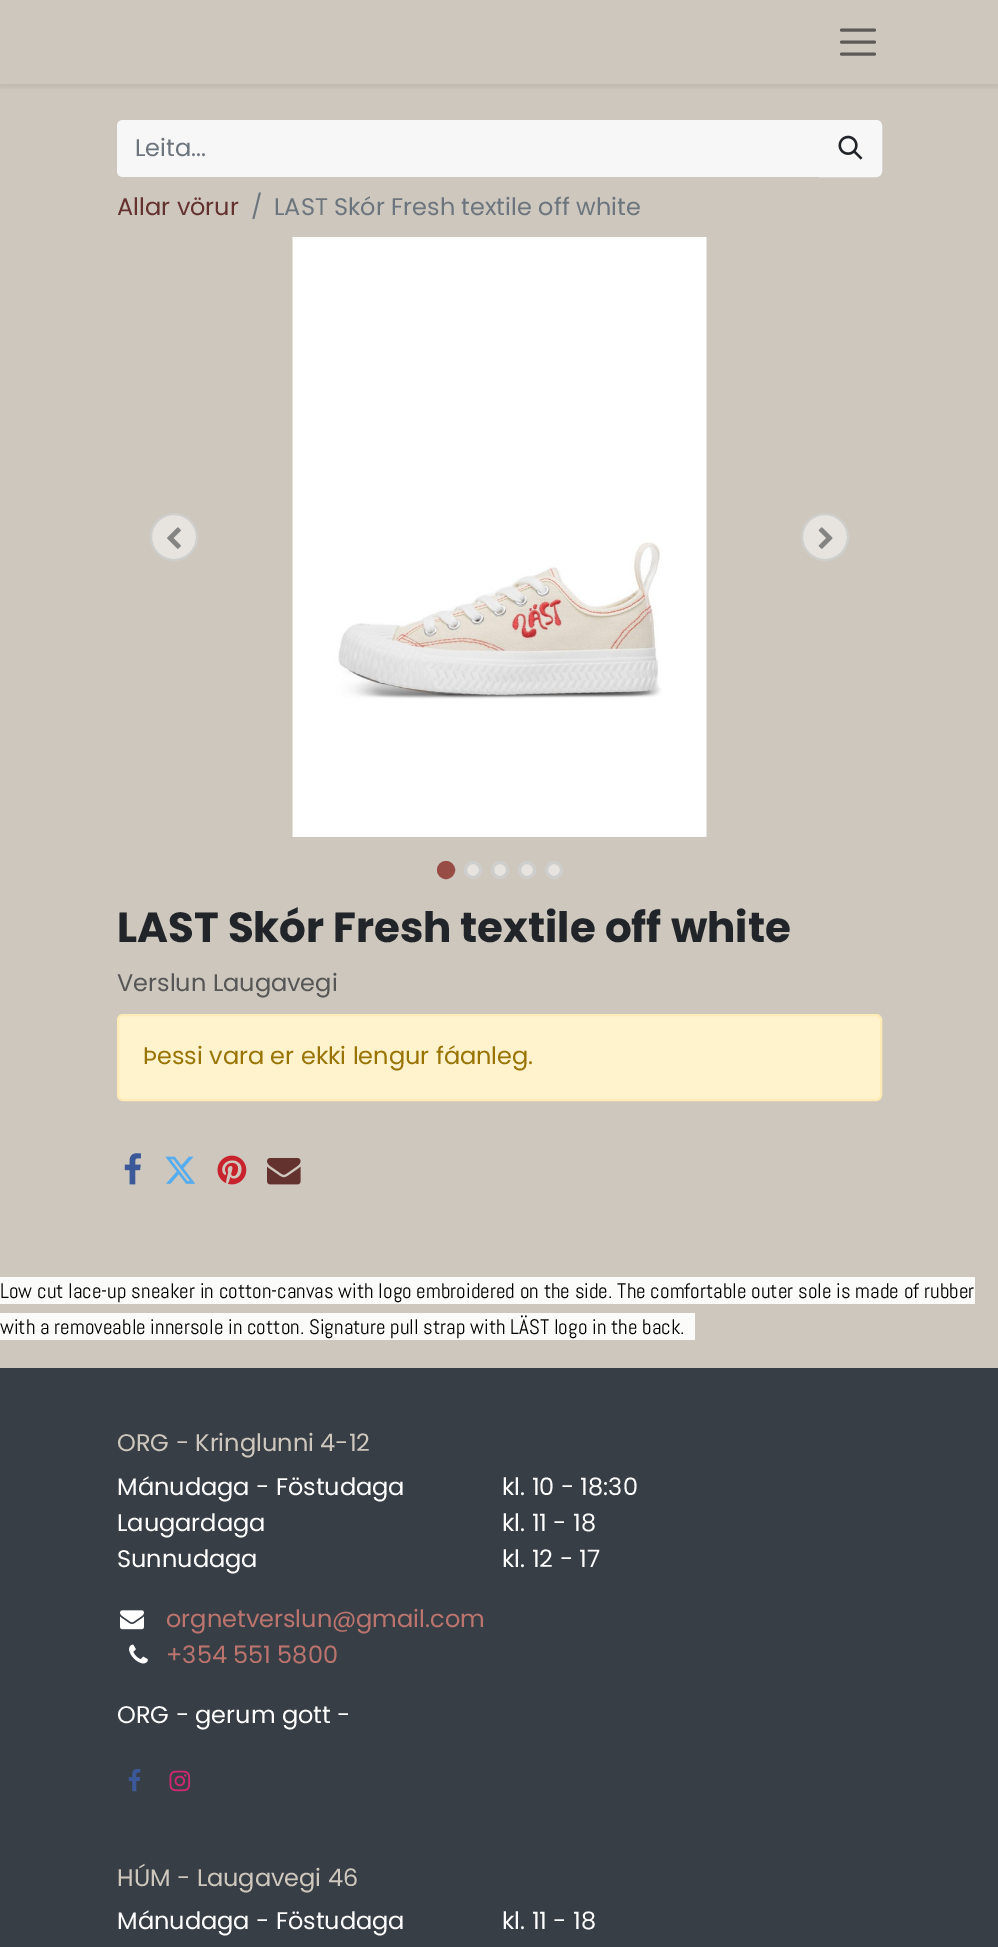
%!PS-Adobe-3.0
%%BoundingBox: 0 0 998 1947
%%LanguageLevel: 3
%%Pages: 1
%%EndComments
%%BeginProlog
/setink { 3 { 255 div 3 1 roll } repeat setrgbcolor } def
/usefont { [ exch dup neg 0 0 3 -1 roll 0 0 ] selectfont } def
/drawtext { setink usefont moveto show } def
/fillbox { setink rectfill } def
/setalpha { dup .setfillconstantalpha .setstrokeconstantalpha } def
/disc { newpath 0 360 arc closepath } def
/rrect { 5 dict begin { /r /h /w /y /x } { exch def } forall
  x r add y moveto x w add y 2 copy h add r arct x w add y h add x 1 index r arct
  x y h add x y r arct x y 2 copy exch w add exch r arct closepath end } def
/softshadow { 12 dict begin { /a /b /q /h /w /y /x } { exch def } forall gsave /was 0 def
  9 -2 -9 { dup b mul 4 div /e exch def 1 sub .425 mul 2.718 exch exp 1 add a .99 .min exch div /now exch def
    1 1 now sub 1 was sub div sub setalpha /was now def
    w h .min e 2 mul add 0 gt { x e sub y e sub w e 2 mul add h e 2 mul add
      q e add b .6 mul add w h .min 2 div e add .min 0 .max rrect fill } if } for grestore end } def
/drawimage { 5 dict begin { /h /w /y /x /name } { exch def } forall
  gsave x y translate w h scale
  w h 8 [w 0 0 h 0 0] name (r) file false 3 colorimage grestore end } def
%%EndProlog
%%BeginSetup
<< /PageSize [998 1947] /PageUsesTransparency true >> setpagedevice
%%EndSetup
%%Page: 1 1
0 .pushpdf14devicefilter
0 1947 translate 1 -1 scale
4 setmiterlimit
0 0 998 1947 206 199 189 fillbox
gsave
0 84 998 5 rectclip
0 0 0 setink
0 3 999 84 0 3 0.07 softshadow
grestore
93 90 85 setink
3 setlinewidth
1 setlinecap
841.5 30 moveto 874.5 30 lineto 841.5 42 moveto 874.5 42 lineto 841.5 54 moveto 874.5 54 lineto stroke
247 247 247 setink
123 120 moveto 821 120 lineto 821 177 lineto 123 177 lineto 119.5 177 117 174.5 117 171 curveto 117 126 lineto 117 122.5 119.5 120 123 120 curveto closepath fill
(Leita...) 135 156 /Poppins-Regular 24 108 117 125 drawtext
247 247 247 setink
820 121 moveto 876 121 lineto 879 121 881 123 881 126 curveto 881 171 lineto 881 174 879 176 876 176 curveto 820 176 lineto closepath gsave fill grestore
2 setlinewidth
0 setlinecap
stroke
(assets/img1.rgb) 838 135 25 25 drawimage
(Allar vörur) 117 215 /Poppins-Regular 24 100 50 46 drawtext
(/) 251 215 /Poppins-Regular 24 108 117 125 drawtext
(LAST Skór Fresh textile off white) 274 215 /Poppins-Regular 24 108 117 125 drawtext
231 227 222 setink
174 537 23 disc gsave fill grestore
206 206 204 setink
stroke
(assets/img2.rgb) 167 527 14 22 drawimage
(assets/img3.rgb) 292 237 415 600 drawimage
231 227 222 setink
825 537 23 disc gsave fill grestore
206 206 204 setink
stroke
(assets/img4.rgb) 818 527 15 22 drawimage
152 76 70 setink
446 870 7.5 disc gsave fill grestore
3 setlinewidth
stroke
231 227 222 setink
473 870 7.5 disc gsave fill grestore
206 206 204 setink
stroke
231 227 222 setink
500 870 7.5 disc gsave fill grestore
206 206 204 setink
stroke
231 227 222 setink
527 870 7.5 disc gsave fill grestore
206 206 204 setink
stroke
231 227 222 setink
554 870 7.5 disc gsave fill grestore
206 206 204 setink
stroke
(LAST Skór Fresh textile off white) 117 942 /Poppins-Bold 42 33 37 41 drawtext
(Verslun Laugavegi) 117 991 /Poppins-Regular 24 85 86 85 drawtext
255 243 205 setink
118 1015 763 85 5 rrect gsave fill grestore
255 236 181 setink
2 setlinewidth
stroke
(Þessi vara er ekki lengur fáanleg.) 143 1064 /Poppins-Regular 24 153 116 4 drawtext
(assets/img5.rgb) 124 1153 17 32 drawimage
(assets/img6.rgb) 165 1156 31 28 drawimage
(assets/img7.rgb) 217 1155 30 30 drawimage
(assets/img8.rgb) 267 1158 34 27 drawimage
0 1277 975 27 251 251 250 fillbox
(Low cut lace-up sneaker in cotton-canvas with logo embroidered on the side. The comfortable outer sole is made of rubber) 0 1298 /Abel-Regular 21 0 0 0 drawtext
0 1313 695 27 251 251 250 fillbox
(with a removeable innersole in cotton. Signature pull strap with LÄST logo in the back.) 0 1334 /Abel-Regular 21 0 0 0 drawtext
0 1368 998 579 56 62 69 fillbox
(ORG - Kringlunni 4-12) 117 1451 /Poppins-Regular 24 206 199 189 drawtext
(Mánudaga - Föstudaga) 117 1495 /Poppins-Regular 24 255 255 255 drawtext
(kl. 10 - 18:30) 502 1495 /Poppins-Regular 24 255 255 255 drawtext
(Laugardaga) 117 1531 /Poppins-Regular 24 255 255 255 drawtext
(kl. 11 - 18) 502 1531 /Poppins-Regular 24 255 255 255 drawtext
(Sunnudaga) 117 1567 /Poppins-Regular 24 255 255 255 drawtext
(kl. 12 - 17) 502 1567 /Poppins-Regular 24 255 255 255 drawtext
(assets/img9.rgb) 120 1610 24 20 drawimage
(orgnetverslun@gmail.com) 166 1627 /Poppins-Regular 24 188 116 110 drawtext
(assets/img10.rgb) 129 1644 19 20 drawimage
(+354 551 5800) 166 1663 /Poppins-Regular 24 188 116 110 drawtext
(ORG - gerum gott -) 117 1723 /Poppins-Regular 24 255 255 255 drawtext
(assets/img11.rgb) 128 1768 13 24 drawimage
(assets/img12.rgb) 169 1770 22 22 drawimage
(HÚM - Laugavegi 46) 117 1886 /Poppins-Regular 24 206 199 189 drawtext
(Mánudaga - Föstudaga) 117 1929 /Poppins-Regular 24 255 255 255 drawtext
(kl. 11 - 18) 502 1929 /Poppins-Regular 24 255 255 255 drawtext
.poppdf14devicefilter showpage
%%EOF
